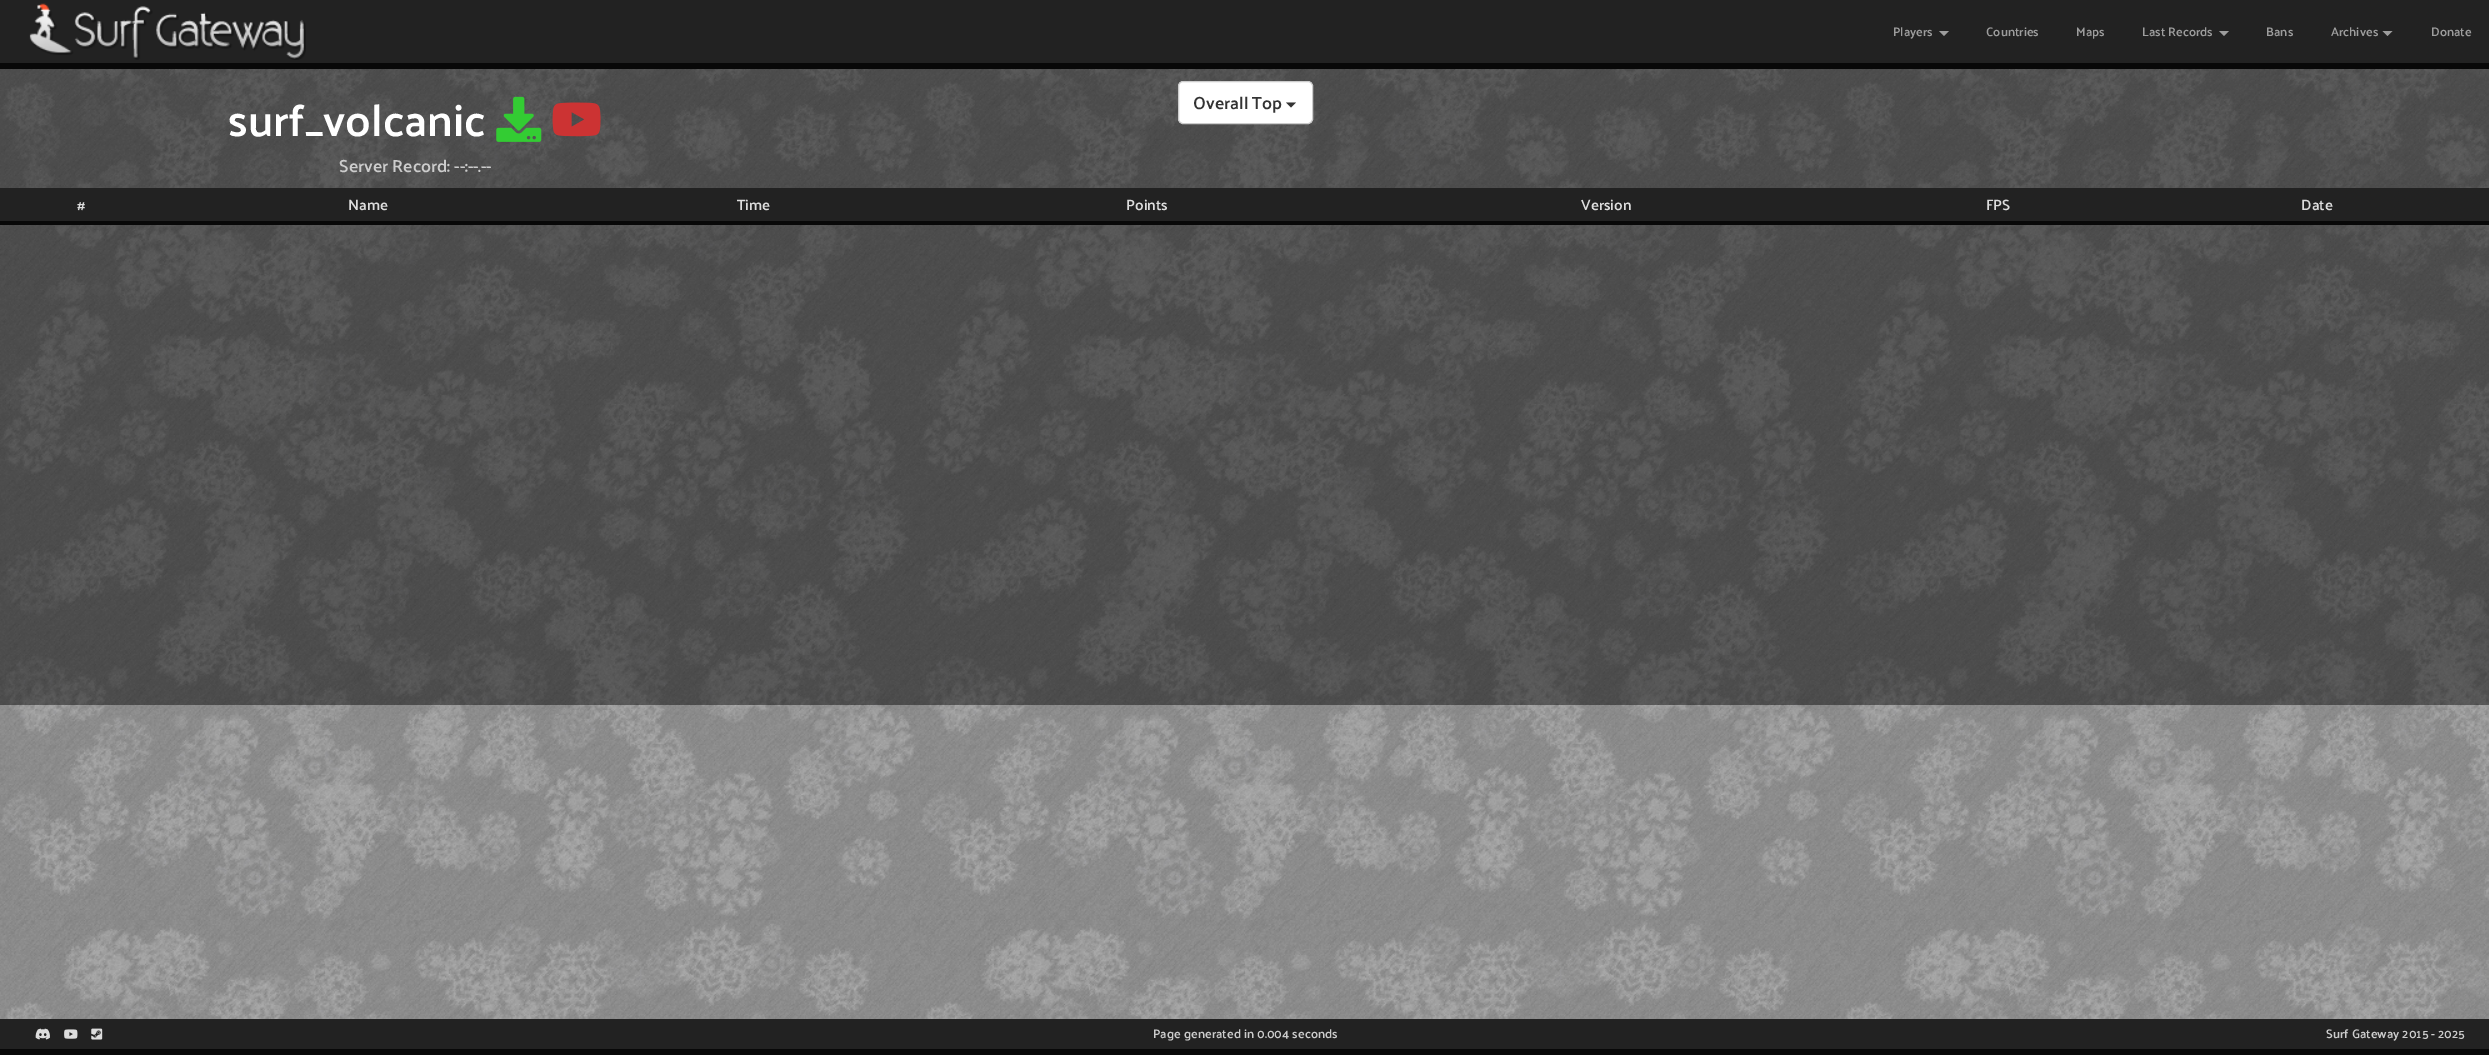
%!PS-Adobe-3.0
%%BoundingBox: 0 0 2489 1055
%%LanguageLevel: 3
%%Pages: 1
%%EndComments
%%BeginProlog
/setink { 3 { 255 div 3 1 roll } repeat setrgbcolor } def
/usefont { [ exch dup neg 0 0 3 -1 roll 0 0 ] selectfont } def
/drawtext { setink usefont moveto show } def
/fillbox { setink rectfill } def
/setalpha { dup .setfillconstantalpha .setstrokeconstantalpha } def
/rrect { 5 dict begin { /r /h /w /y /x } { exch def } forall
  x r add y moveto x w add y 2 copy h add r arct x w add y h add x 1 index r arct
  x y h add x y r arct x y 2 copy exch w add exch r arct closepath end } def
/drawimage { 5 dict begin { /h /w /y /x /name } { exch def } forall
  gsave x y translate w h scale
  w h 8 [w 0 0 h 0 0] name (r) file false 3 colorimage grestore end } def
%%EndProlog
%%BeginSetup
<< /PageSize [2489 1055] /PageUsesTransparency true >> setpagedevice
%%EndSetup
%%Page: 1 1
0 .pushpdf14devicefilter
0 1055 translate 1 -1 scale
4 setmiterlimit
0 0 2489 1055 255 255 255 fillbox
(assets/img1.rgb) 0 69 2489 950 drawimage
0 0 2489 63 34 34 34 fillbox
0 63 2489 6 8 8 8 fillbox
(assets/img2.rgb) 29 3 277 57 drawimage
(Players) 1893 36 /Palanquin-SemiBold 12.5 157 157 157 drawtext
1939 31 moveto 1949 31 lineto 1944 36 lineto closepath fill
(Countries) 1986 36 /Palanquin-SemiBold 12.5 157 157 157 drawtext
(Maps) 2076 36 /Palanquin-SemiBold 12.5 157 157 157 drawtext
(Last Records) 2142 36 /Palanquin-SemiBold 12.5 157 157 157 drawtext
2219 31 moveto 2229 31 lineto 2224 36 lineto closepath fill
(Bans) 2266 36 /Palanquin-SemiBold 12.5 157 157 157 drawtext
(Archives) 2331 36 /Palanquin-SemiBold 12.5 157 157 157 drawtext
2382.5 31 moveto 2392.5 31 lineto 2387.5 36 lineto closepath fill
(Donate) 2431 36 /Palanquin-SemiBold 12.5 157 157 157 drawtext
0.45 setalpha
0 69 2489 12 0 0 0 fillbox
0 81 2489 107 0 0 0 fillbox
1 setalpha
(surf_volcanic) 228 136 /Palanquin-SemiBold 45 255 255 255 drawtext
(assets/img3.rgb) 496 96 46 46 drawimage
(assets/img4.rgb) 552 102 49 35 drawimage
(Server Record: --:--.--) 339 172 /Palanquin-SemiBold 17.5 204 204 204 drawtext
255 255 255 setink
1178.5 81.5 134 42 4.5 rrect gsave fill grestore
204 204 204 setink
stroke
(Overall Top) 1193 109 /Palanquin-SemiBold 17.5 51 51 51 drawtext
1286 102.5 moveto 1296 102.5 lineto 1291 107.5 lineto closepath fill
0 188 2489 33 34 34 34 fillbox
(#) 77 210 /Palanquin-SemiBold 15 221 221 221 drawtext
(Name) 348 210 /Palanquin-SemiBold 15 221 221 221 drawtext
(Time) 737 210 /Palanquin-SemiBold 15 221 221 221 drawtext
(Points) 1126 210 /Palanquin-SemiBold 15 221 221 221 drawtext
(Version) 1581 210 /Palanquin-SemiBold 15 221 221 221 drawtext
(FPS) 1986 210 /Palanquin-SemiBold 15 221 221 221 drawtext
0 221 2489 4 8 8 8 fillbox
(Date) 2301 210 /Palanquin-SemiBold 15 221 221 221 drawtext
0.45 setalpha
0 225 2489 480 0 0 0 fillbox
1 setalpha
0 1019 2489 30 34 34 34 fillbox
0 1049 2489 6 8 8 8 fillbox
(assets/img5.rgb) 35 1028 15 12 drawimage
(assets/img6.rgb) 64 1029 14 10 drawimage
(assets/img7.rgb) 91 1028 12 12 drawimage
(Page generated in 0.004 seconds) 1153 1038 /Palanquin-SemiBold 12.5 204 204 204 drawtext
(Surf Gateway 2015 - 2025) 2326 1038 /Palanquin-SemiBold 12.5 204 204 204 drawtext
.poppdf14devicefilter showpage
%%EOF
